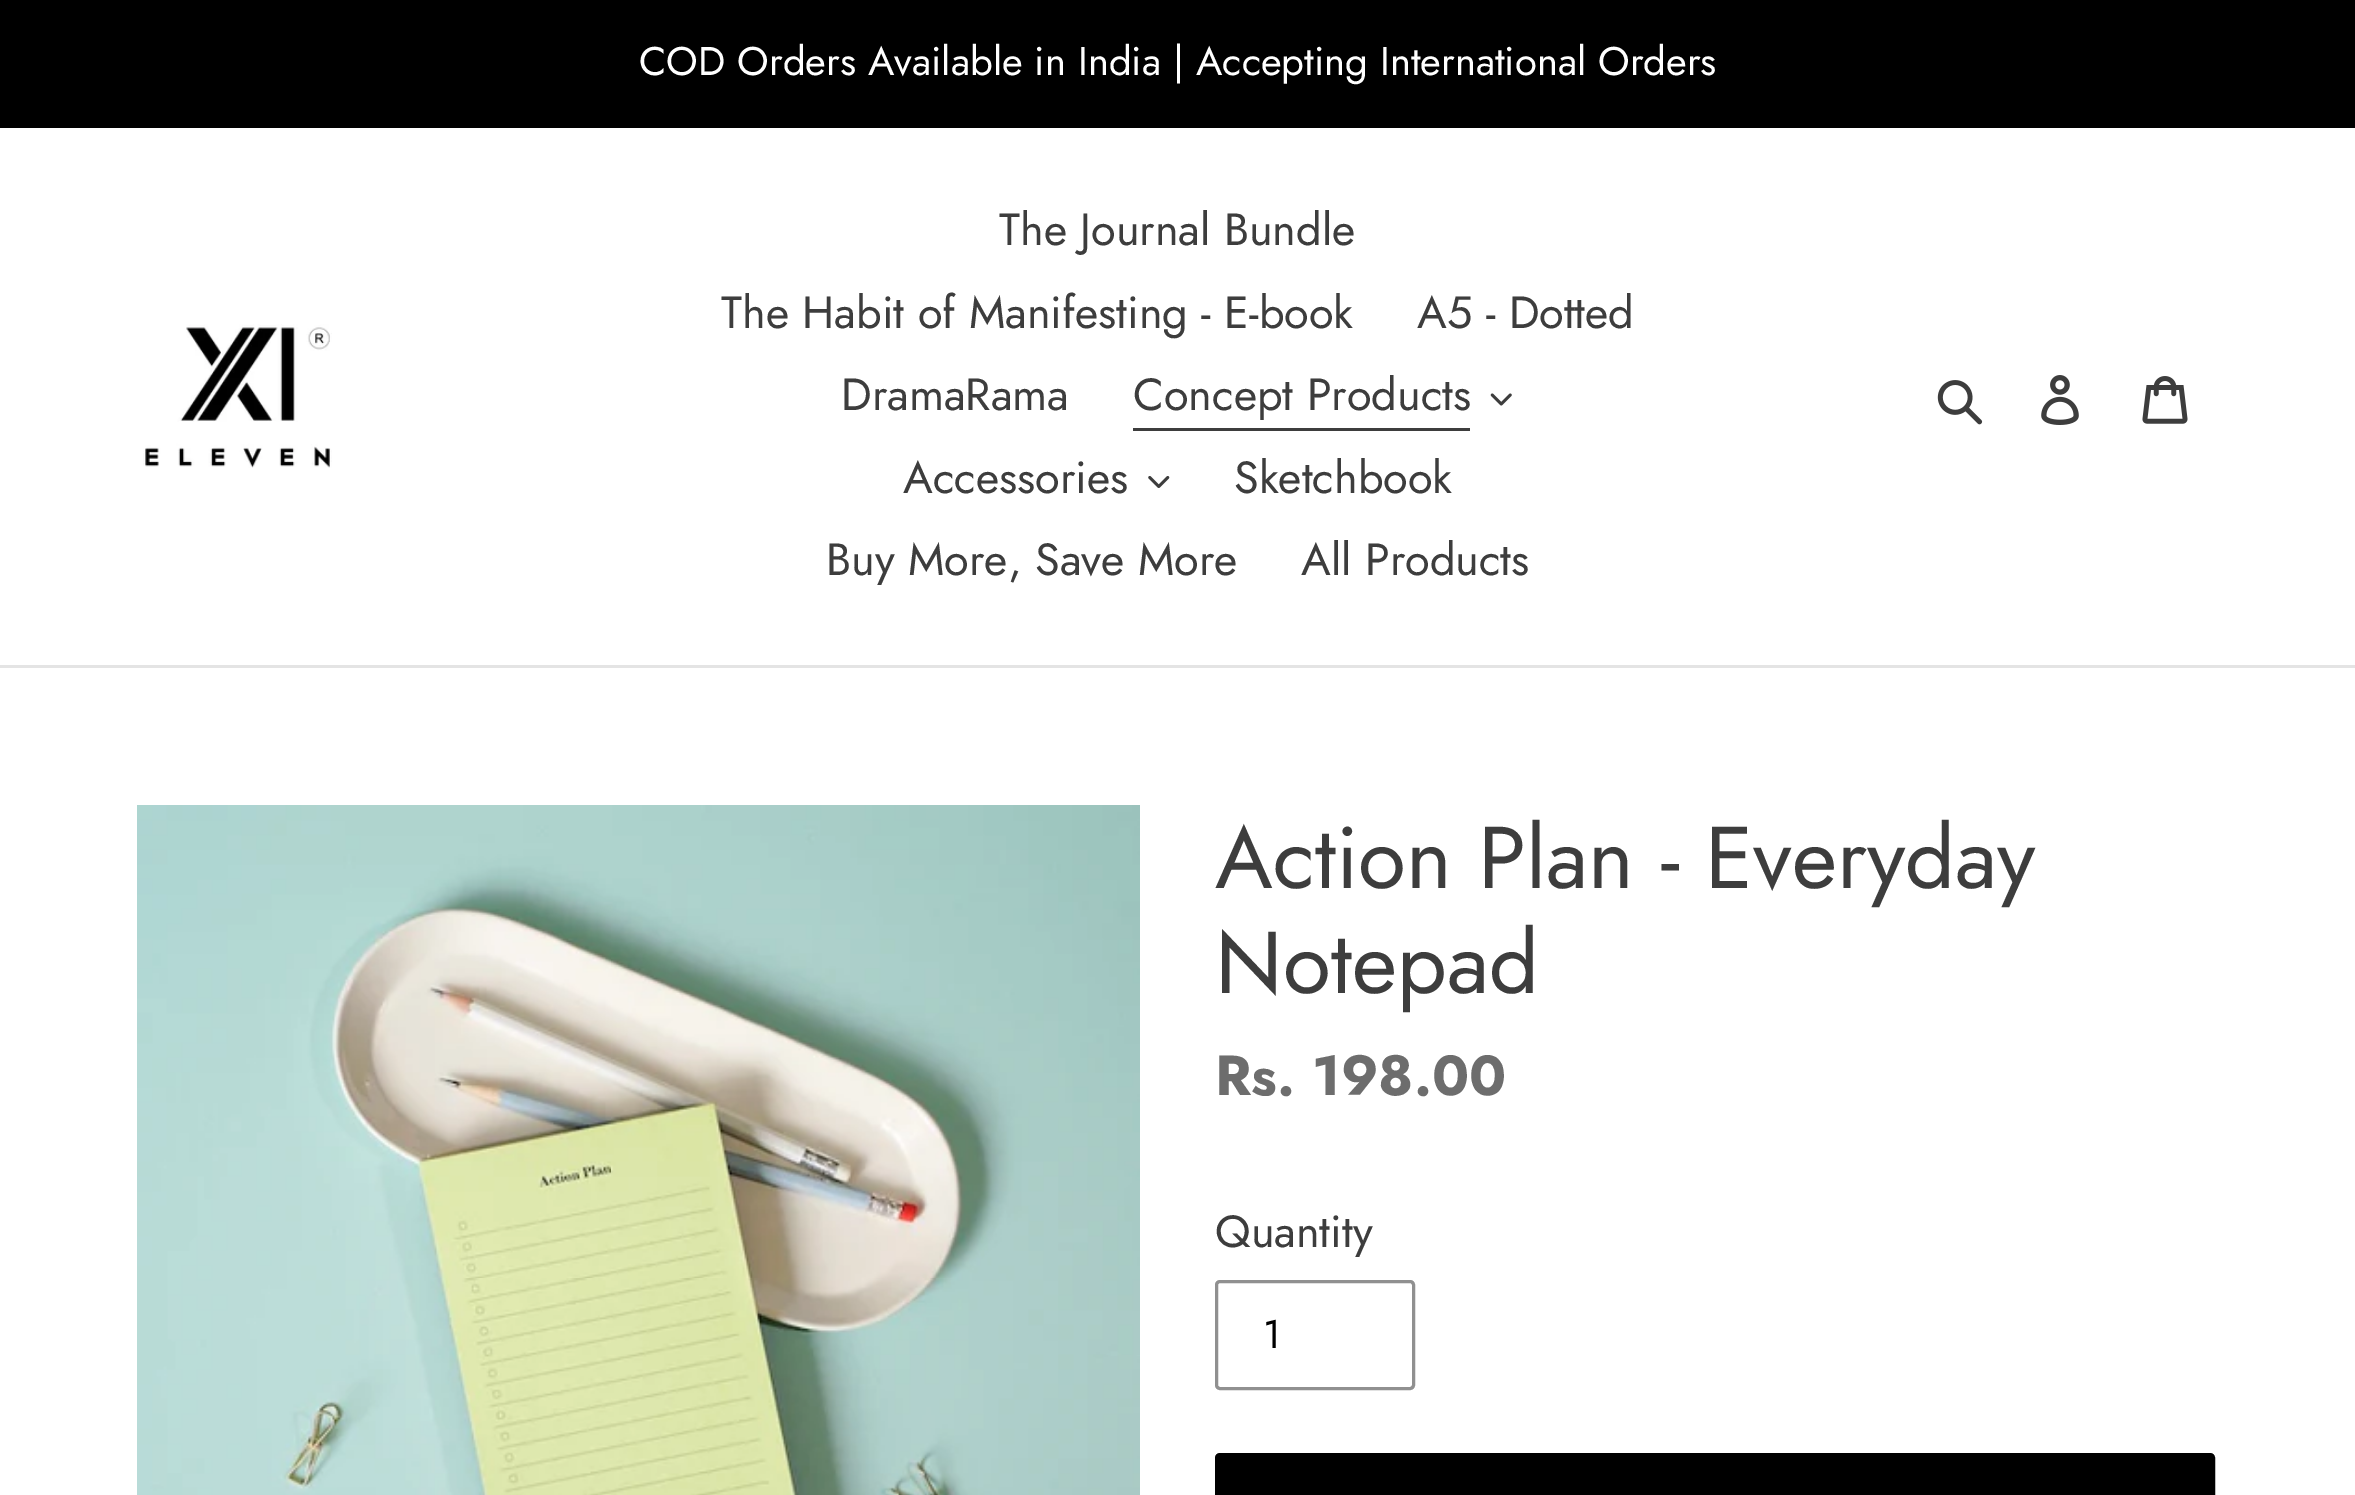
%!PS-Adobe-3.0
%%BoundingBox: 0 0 2355 1495
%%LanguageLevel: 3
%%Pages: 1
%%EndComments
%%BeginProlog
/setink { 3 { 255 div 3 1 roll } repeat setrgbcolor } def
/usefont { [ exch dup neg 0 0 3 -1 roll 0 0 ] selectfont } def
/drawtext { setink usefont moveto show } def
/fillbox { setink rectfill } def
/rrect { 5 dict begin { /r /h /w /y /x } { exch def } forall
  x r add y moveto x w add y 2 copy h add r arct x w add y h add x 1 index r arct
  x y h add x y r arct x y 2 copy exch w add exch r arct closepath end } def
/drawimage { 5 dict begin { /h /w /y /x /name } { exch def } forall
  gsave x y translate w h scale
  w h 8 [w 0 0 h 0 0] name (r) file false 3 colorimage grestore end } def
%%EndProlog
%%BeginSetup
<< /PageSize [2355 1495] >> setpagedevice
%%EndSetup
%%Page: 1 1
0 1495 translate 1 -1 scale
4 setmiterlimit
0 0 2355 1495 255 255 255 fillbox
0 0 2355 128 0 0 0 fillbox
(COD Orders Available in India | Accepting International Orders) 639 75 /Jost-Regular 40 255 255 255 drawtext
0 665 2355 3 228 228 228 fillbox
(assets/img1.rgb) 143 324 189 144 drawimage
(The Journal Bundle) 999 245 /Jost-Regular 45 61 61 61 drawtext
(The Habit of Manifesting - E-book) 721 328 /Jost-Regular 45 61 61 61 drawtext
(A5 - Dotted) 1417 328 /Jost-Regular 45 61 61 61 drawtext
(DramaRama) 841 410 /Jost-Regular 45 61 61 61 drawtext
(Concept Products) 1133 410 /Jost-Regular 45 61 61 61 drawtext
1133 428 337 3 61 61 61 fillbox
(assets/img2.rgb) 1490 393 22 13 drawimage
(Accessories) 903 493 /Jost-Regular 45 61 61 61 drawtext
(assets/img3.rgb) 1148 476 22 12 drawimage
(Sketchbook) 1234 493 /Jost-Regular 45 61 61 61 drawtext
(Buy More, Save More) 826 575 /Jost-Regular 45 61 61 61 drawtext
(All Products) 1301 575 /Jost-Regular 45 61 61 61 drawtext
(assets/img4.rgb) 1937 380 46 45 drawimage
(assets/img5.rgb) 2041 375 38 50 drawimage
(assets/img6.rgb) 2142 376 46 48 drawimage
(assets/img7.rgb) 137 805 1003 690 drawimage
(Action Plan - Everyday) 1215 888 /Jost-Regular 87.5 61 61 61 drawtext
(Notepad) 1215 993 /Jost-Regular 87.5 61 61 61 drawtext
(Rs. 198.00) 1215 1095 /Jost-Bold 56.25 109 109 109 drawtext
(Quantity) 1215 1247 /Jost-Regular 45 61 61 61 drawtext
144 144 144 setink
3 setlinewidth
1216.5 1281.5 197 107 3.5 rrect stroke
(1) 1263 1348 /Jost-Regular 40 0 0 0 drawtext
1216.5 1454.5 997 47 3.5 rrect gsave fill grestore
stroke
showpage
%%EOF
